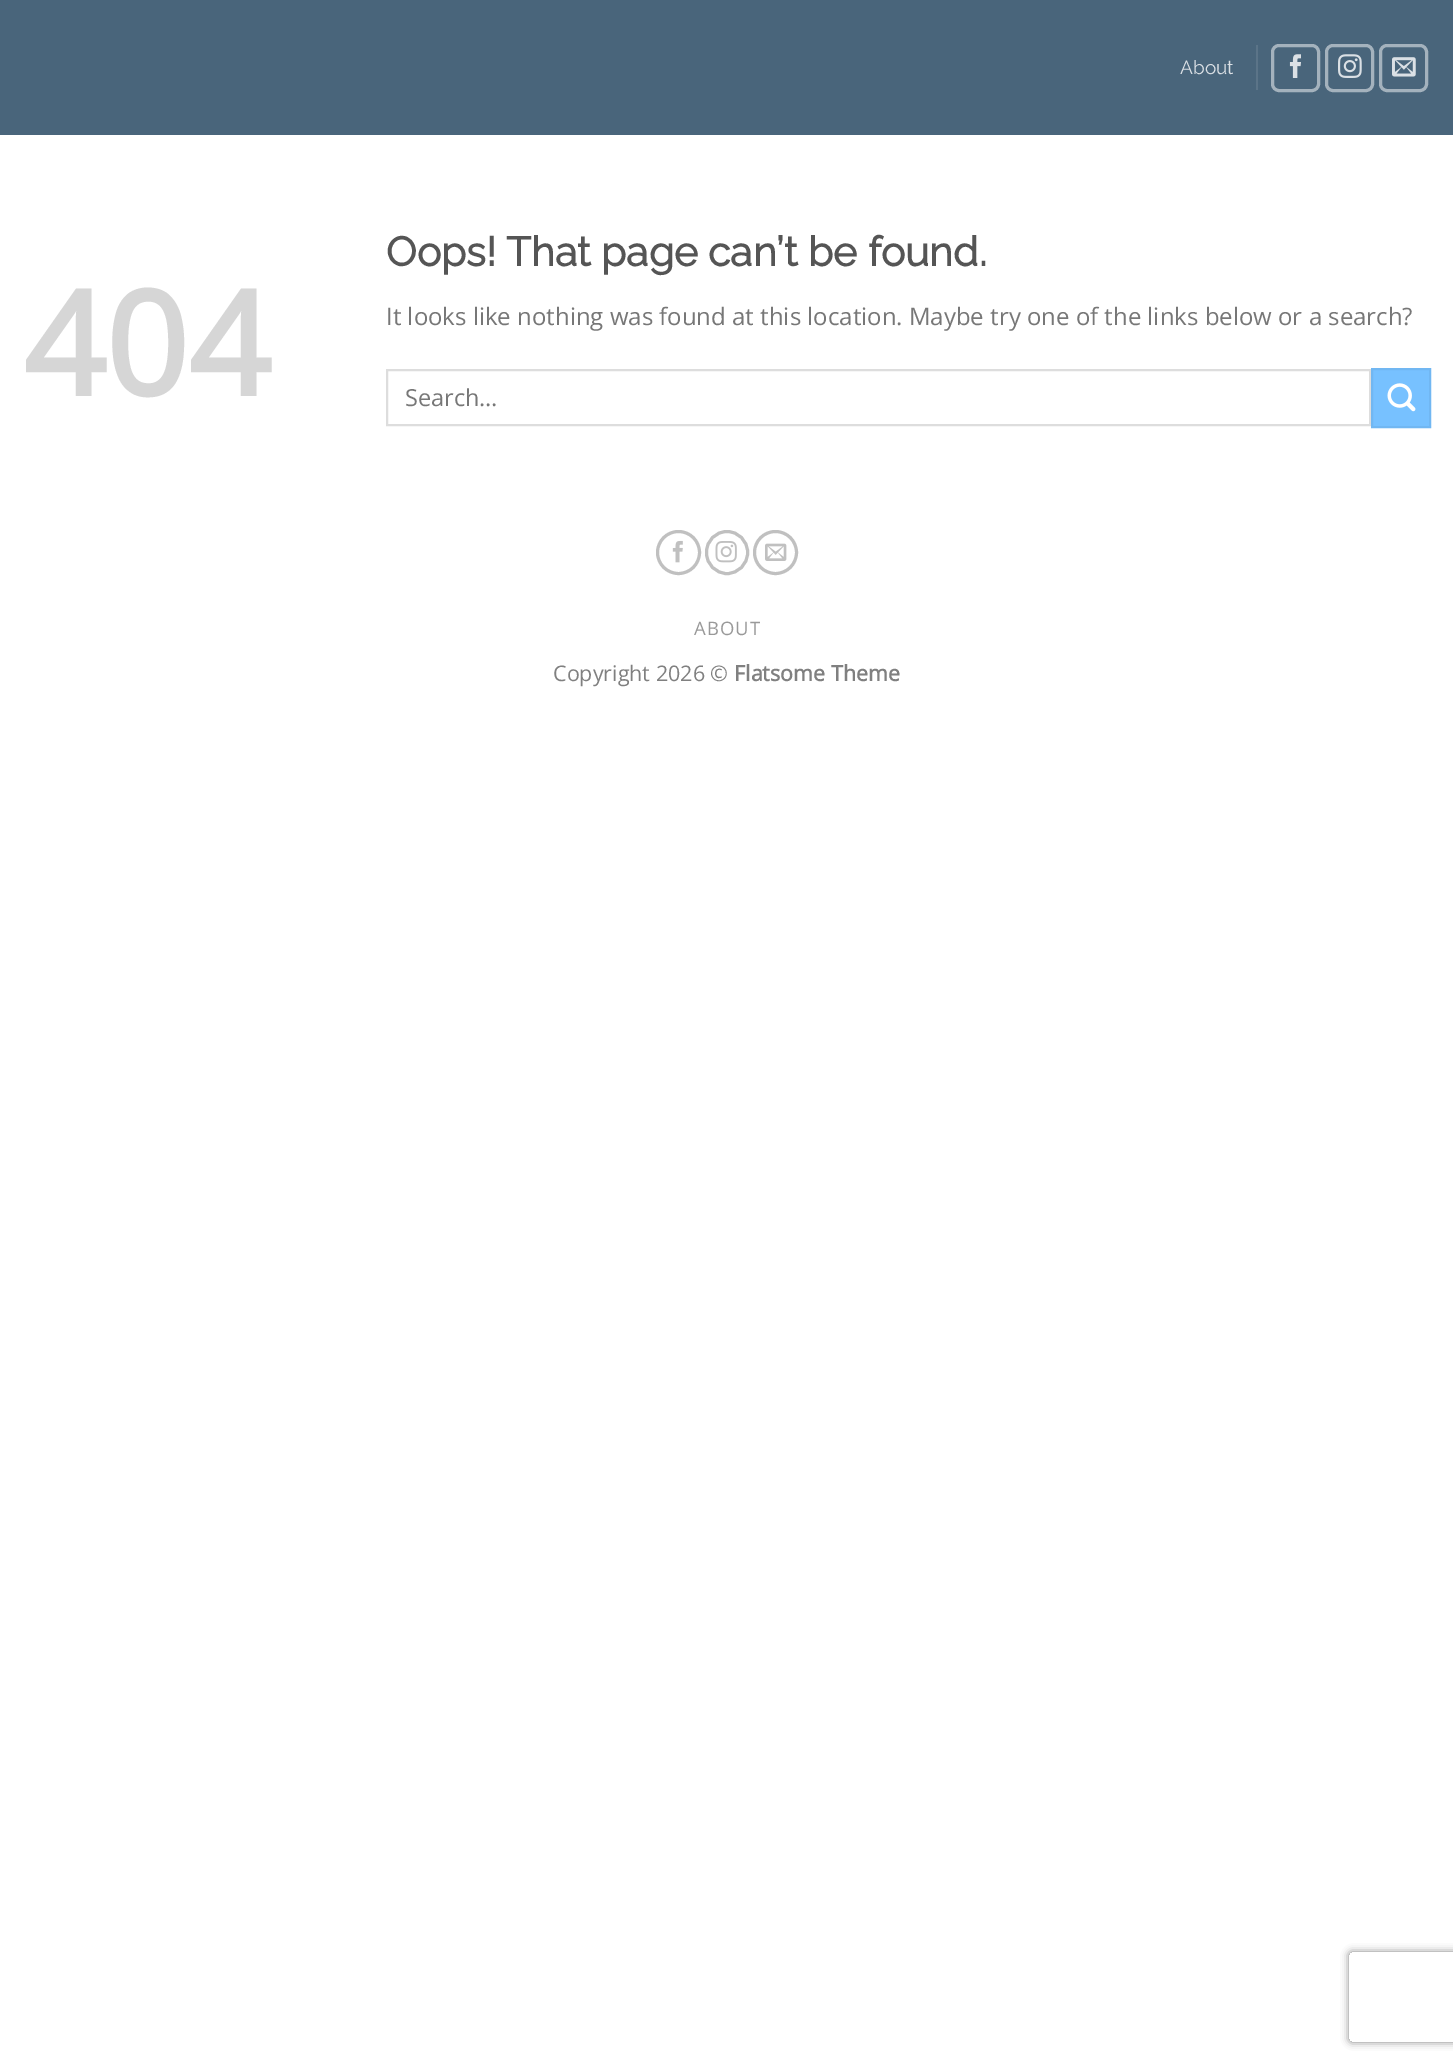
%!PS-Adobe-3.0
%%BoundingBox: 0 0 1453 2062
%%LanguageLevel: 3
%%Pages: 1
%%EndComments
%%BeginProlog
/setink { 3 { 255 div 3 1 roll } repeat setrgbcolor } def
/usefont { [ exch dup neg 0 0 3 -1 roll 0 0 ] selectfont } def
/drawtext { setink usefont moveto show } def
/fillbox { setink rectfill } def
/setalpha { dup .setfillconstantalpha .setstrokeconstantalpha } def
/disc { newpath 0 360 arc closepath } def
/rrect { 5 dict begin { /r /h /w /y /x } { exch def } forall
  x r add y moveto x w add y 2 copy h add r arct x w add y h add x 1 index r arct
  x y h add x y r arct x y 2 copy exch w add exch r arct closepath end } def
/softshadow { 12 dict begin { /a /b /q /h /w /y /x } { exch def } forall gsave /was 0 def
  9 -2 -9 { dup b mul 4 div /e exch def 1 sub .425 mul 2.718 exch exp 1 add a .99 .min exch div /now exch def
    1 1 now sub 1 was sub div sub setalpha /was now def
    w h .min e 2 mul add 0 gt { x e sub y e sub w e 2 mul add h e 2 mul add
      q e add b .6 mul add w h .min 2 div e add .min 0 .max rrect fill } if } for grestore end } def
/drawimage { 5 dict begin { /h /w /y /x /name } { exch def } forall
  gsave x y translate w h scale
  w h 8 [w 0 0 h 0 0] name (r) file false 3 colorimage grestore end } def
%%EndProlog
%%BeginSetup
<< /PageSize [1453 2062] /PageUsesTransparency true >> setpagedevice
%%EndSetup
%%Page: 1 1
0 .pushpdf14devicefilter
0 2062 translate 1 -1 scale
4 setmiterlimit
0 0 1453 2062 255 255 255 fillbox
0 0 1453 135 73 101 123 fillbox
(About) 1180 74 /Raleway-Thin 19 219 224 229 drawtext
1256 45 2 45 91 116 136 fillbox
164 178 189 setink
3 setlinewidth
1272.5 45.5 46 45 6.5 rrect stroke
(assets/img1.rgb) 1289 54 12 24 drawimage
1326.5 45.5 46 45 6.5 rrect stroke
(assets/img2.rgb) 1338 54 24 24 drawimage
1380.5 45.5 46 45 6.5 rrect stroke
(assets/img3.rgb) 1392 57 24 20 drawimage
(404) 23 396 /OpenSans-Bold 144 214 214 214 drawtext
(Oops! That page can’t be found.) 386 266 /Raleway-Bold 40.75 85 85 85 drawtext
(It looks like nothing was found at this location. Maybe try one of the links below or a search?) 386 325 /OpenSans-Regular 24 119 119 119 drawtext
221 221 221 setink
2 setlinewidth
387 370 983 55 rectstroke
(Search…) 405 406 /OpenSans-Regular 23.5 119 119 119 drawtext
119 193 255 setink
1372 369 moveto 1430 369 lineto 1430 427 lineto 1372 427 lineto closepath gsave fill grestore
113 183 242 setink
stroke
(assets/img4.rgb) 1387 383 29 29 drawimage
192 192 192 setink
3 setlinewidth
678.5 552.5 21 disc stroke
(assets/img5.rgb) 672 540 11 23 drawimage
706.5 531.5 41 42 20.5 rrect stroke
(assets/img6.rgb) 715 541 22 22 drawimage
775.5 552.5 21 disc stroke
(assets/img7.rgb) 765 543 22 18 drawimage
/OpenSans-Regular 18.5 usefont
153 153 153 setink
694 635 moveto 1 0 (ABOUT) ashow
(Copyright 2026 ©) 553 681 /OpenSans-Regular 21.5 128 128 128 drawtext
(Flatsome Theme) 734 681 /OpenSans-Bold 21.5 128 128 128 drawtext
gsave
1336 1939 moveto 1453 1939 lineto 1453 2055 lineto 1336 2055 lineto closepath 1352 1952 moveto 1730 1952 lineto 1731.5 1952 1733 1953.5 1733 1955 curveto 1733 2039 lineto 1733 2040.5 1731.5 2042 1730 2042 curveto 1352 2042 lineto 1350.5 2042 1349 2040.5 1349 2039 curveto 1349 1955 lineto 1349 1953.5 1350.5 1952 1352 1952 curveto closepath eoclip newpath
1349 1952 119 90 3 4 1 softshadow
grestore
.poppdf14devicefilter showpage
%%EOF
